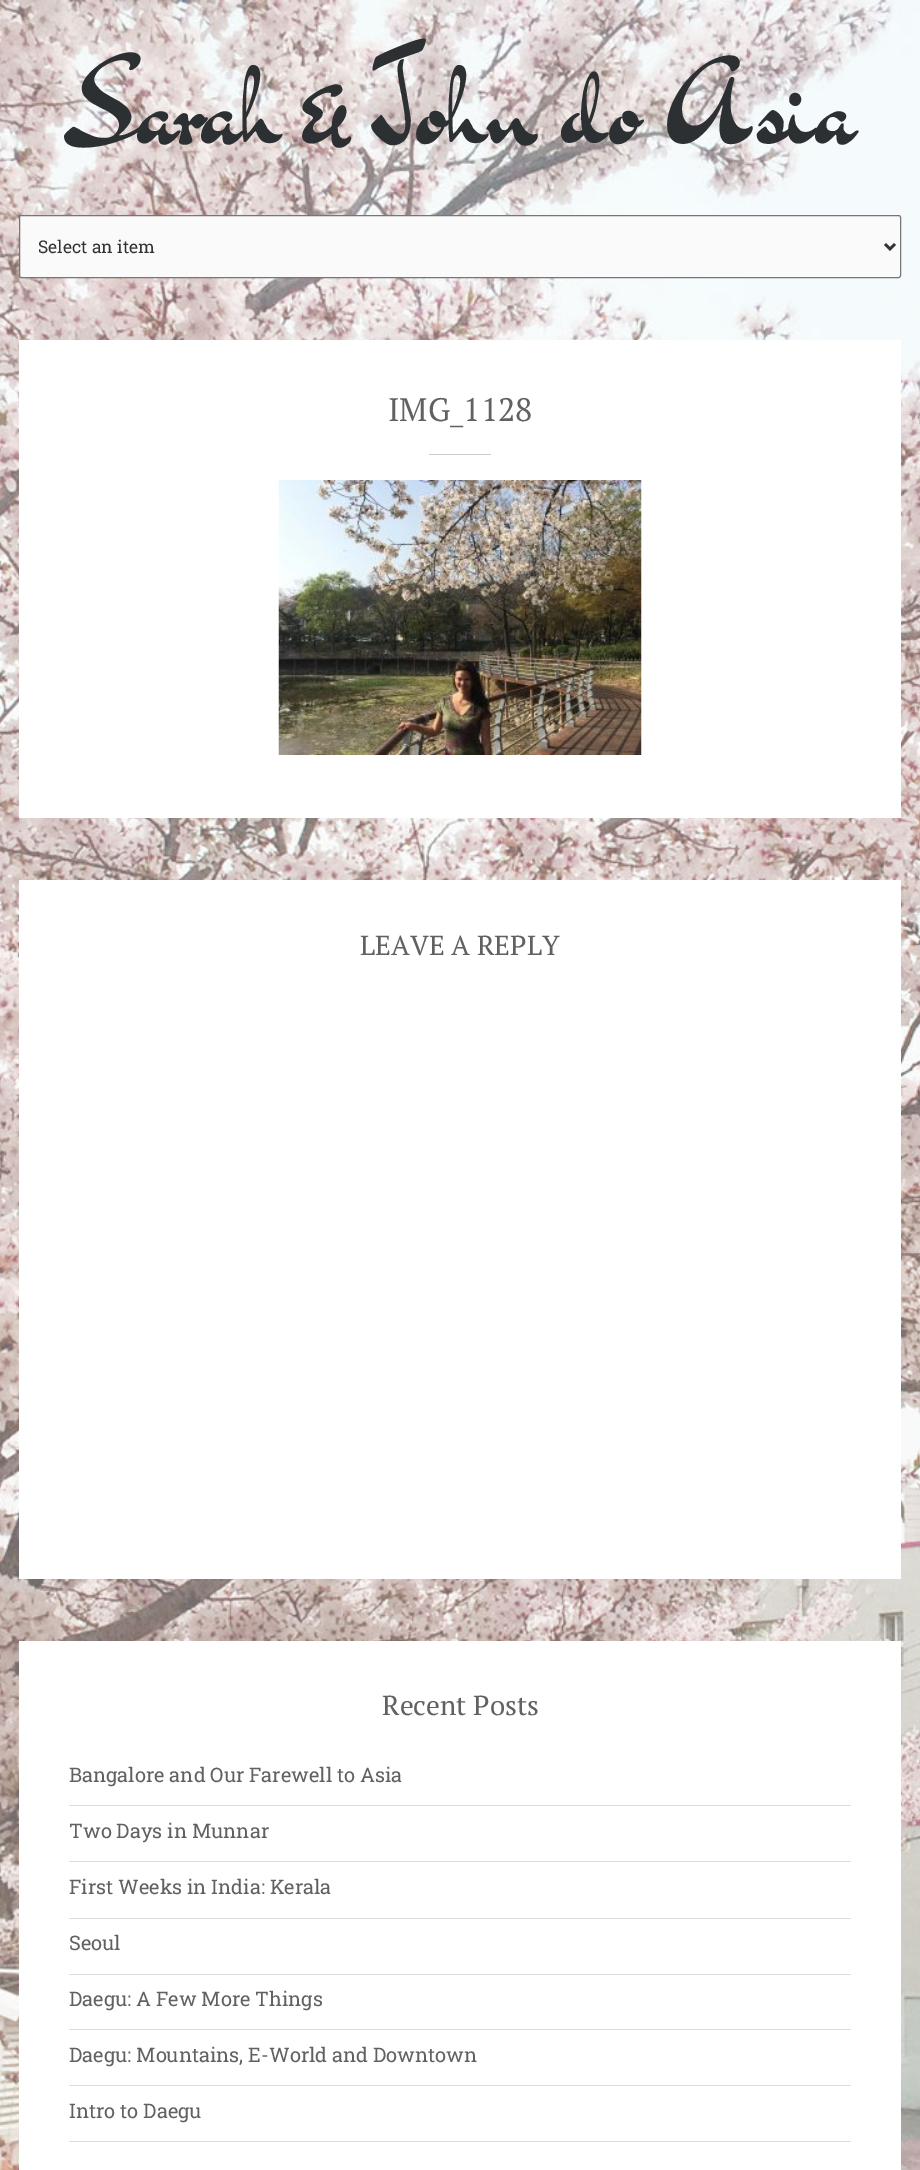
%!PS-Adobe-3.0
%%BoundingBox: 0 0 920 2170
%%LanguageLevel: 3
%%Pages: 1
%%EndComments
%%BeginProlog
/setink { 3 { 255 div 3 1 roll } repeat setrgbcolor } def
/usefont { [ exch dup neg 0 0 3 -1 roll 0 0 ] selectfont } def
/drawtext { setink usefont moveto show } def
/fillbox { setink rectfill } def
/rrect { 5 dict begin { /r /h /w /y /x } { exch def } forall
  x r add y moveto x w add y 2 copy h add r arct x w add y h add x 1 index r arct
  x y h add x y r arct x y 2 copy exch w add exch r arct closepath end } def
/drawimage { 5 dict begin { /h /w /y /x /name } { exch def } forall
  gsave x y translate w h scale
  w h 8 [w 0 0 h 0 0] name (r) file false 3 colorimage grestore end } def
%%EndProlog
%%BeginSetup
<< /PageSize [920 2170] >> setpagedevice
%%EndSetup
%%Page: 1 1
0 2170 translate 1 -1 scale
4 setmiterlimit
0 0 920 2170 255 255 255 fillbox
(assets/img1.rgb) 0 0 920 2170 drawimage
(Sarah & John do Asia) 64 139 /DrSugiyama-Regular 112.5 45 48 50 drawtext
250 250 250 setink
19.5 215.5 881 62 2 rrect gsave fill grestore
118 118 118 setink
stroke
51 51 51 setink
2.5 setlinewidth
885 244 moveto 890 249 lineto 895 244 lineto stroke
(Select an item) 38 253 /RobotoSlab-Regular 17.5 51 51 51 drawtext
19 340 882 478 255 255 255 fillbox
(IMG_1128) 388 421 /PTSerif-Regular 32.5 97 97 97 drawtext
429 454 62 1 204 204 204 fillbox
(assets/img2.rgb) 278 480 364 275 drawimage
19 880 882 699 255 255 255 fillbox
(LEAVE A REPLY) 360 955 /PTSerif-Regular 27.5 97 97 97 drawtext
19 1641 882 529 255 255 255 fillbox
(Recent Posts) 382 1715 /PTSerif-Regular 27.5 97 97 97 drawtext
69 1805 782 1 221 221 221 fillbox
(Bangalore and Our Farewell to Asia) 69 1782 /RobotoSlab-Regular 20 97 97 97 drawtext
69 1861 782 1 221 221 221 fillbox
(Two Days in Munnar) 69 1838 /RobotoSlab-Regular 20 97 97 97 drawtext
69 1918 782 1 221 221 221 fillbox
(First Weeks in India: Kerala) 69 1894 /RobotoSlab-Regular 20 97 97 97 drawtext
69 1974 782 1 221 221 221 fillbox
(Seoul) 69 1950 /RobotoSlab-Regular 20 97 97 97 drawtext
69 2029 782 1 221 221 221 fillbox
(Daegu: A Few More Things) 69 2006 /RobotoSlab-Regular 20 97 97 97 drawtext
69 2085 782 1 221 221 221 fillbox
(Daegu: Mountains, E-World and Downtown) 69 2062 /RobotoSlab-Regular 20 97 97 97 drawtext
69 2141 782 1 221 221 221 fillbox
(Intro to Daegu) 69 2118 /RobotoSlab-Regular 20 97 97 97 drawtext
showpage
%%EOF
